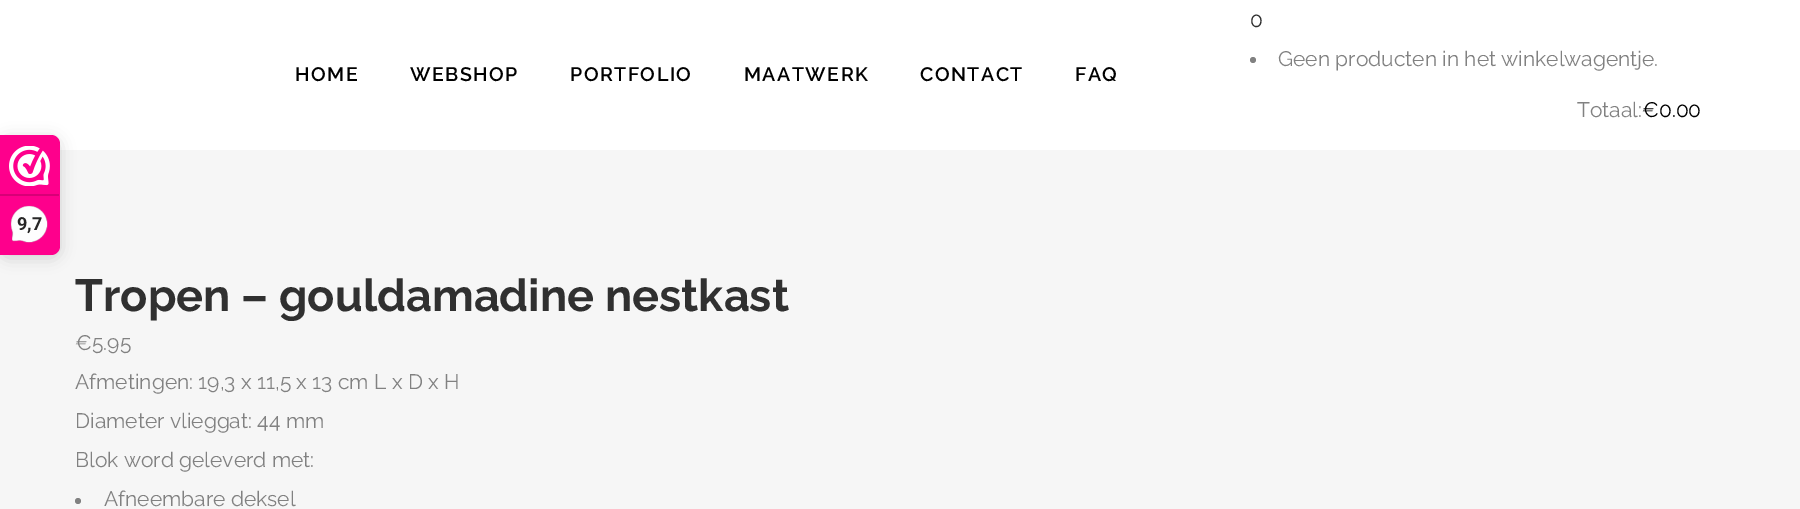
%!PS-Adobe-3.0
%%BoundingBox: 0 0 1800 509
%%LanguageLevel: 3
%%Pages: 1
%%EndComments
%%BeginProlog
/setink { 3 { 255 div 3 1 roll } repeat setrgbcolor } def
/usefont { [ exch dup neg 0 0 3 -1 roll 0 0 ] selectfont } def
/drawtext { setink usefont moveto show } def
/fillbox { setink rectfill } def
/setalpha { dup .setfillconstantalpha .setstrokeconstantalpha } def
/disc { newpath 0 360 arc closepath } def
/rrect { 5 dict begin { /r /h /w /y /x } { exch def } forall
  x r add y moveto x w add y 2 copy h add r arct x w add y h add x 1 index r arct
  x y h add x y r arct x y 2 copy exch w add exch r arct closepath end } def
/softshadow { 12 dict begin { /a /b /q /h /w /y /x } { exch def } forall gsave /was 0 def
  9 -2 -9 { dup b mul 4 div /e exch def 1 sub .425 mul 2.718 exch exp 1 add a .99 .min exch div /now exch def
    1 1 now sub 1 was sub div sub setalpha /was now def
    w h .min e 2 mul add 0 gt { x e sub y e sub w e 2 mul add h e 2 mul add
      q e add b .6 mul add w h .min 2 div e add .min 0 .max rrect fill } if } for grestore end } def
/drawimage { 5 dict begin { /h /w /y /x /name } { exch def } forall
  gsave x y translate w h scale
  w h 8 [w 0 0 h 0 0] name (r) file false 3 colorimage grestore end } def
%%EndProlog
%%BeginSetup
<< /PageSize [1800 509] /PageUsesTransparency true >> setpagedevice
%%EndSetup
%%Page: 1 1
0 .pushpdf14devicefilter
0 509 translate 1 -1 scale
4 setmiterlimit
0 0 1800 509 246 246 246 fillbox
0 0 1800 150 255 255 255 fillbox
0 0 0 setink
0 138 60 120 9 7.5 0.15 softshadow
254 0 140 setink
0 135 moveto 51 135 lineto 56 135 60 139 60 144 curveto 60 246 lineto 60 251 56 255 51 255 curveto 0 255 lineto closepath fill
(assets/img1.rgb) 9 146 41 40 drawimage
0 194 59 2 216 0 119 fillbox
(assets/img2.rgb) 10 205 38 38 drawimage
(9,7) 17 230 /Roboto-Bold 18 39 38 38 drawtext
/Raleway-SemiBold 19.5 usefont
0 0 0 setink
295 81 moveto 1.5 0 (HOME) ashow
410 81 moveto 1.5 0 (WEBSHOP) ashow
570 81 moveto 1.5 0 (PORTFOLIO) ashow
744 81 moveto 1.5 0 (MAATWERK) ashow
920 81 moveto 1.5 0 (CONTACT) ashow
1075 81 moveto 1.5 0 (FAQ) ashow
(0) 1250 27 /Raleway-Regular 21 48 48 48 drawtext
129 129 129 setink
1253 60 3 disc fill
(Geen producten in het winkelwagentje.) 1278 66 /Raleway-Regular 21 129 129 129 drawtext
(Totaal:) 1577 117 /Raleway-Regular 21 129 129 129 drawtext
(€0.00) 1642 117 /Raleway-Regular 21 0 0 0 drawtext
(Tropen – gouldamadine nestkast) 75 311 /Raleway-Bold 45 48 48 48 drawtext
(€5.95) 75 350 /Raleway-Regular 21 129 129 129 drawtext
(Afmetingen: 19,3 x 11,5 x 13 cm L x D x H) 75 389 /Raleway-Regular 21 129 129 129 drawtext
(Diameter vlieggat: 44 mm) 75 428 /Raleway-Regular 21 129 129 129 drawtext
(Blok word geleverd met:) 75 467 /Raleway-Regular 21 129 129 129 drawtext
78 501 3 disc fill
(Afneembare deksel) 104 506 /Raleway-Regular 21 129 129 129 drawtext
.poppdf14devicefilter showpage
%%EOF
